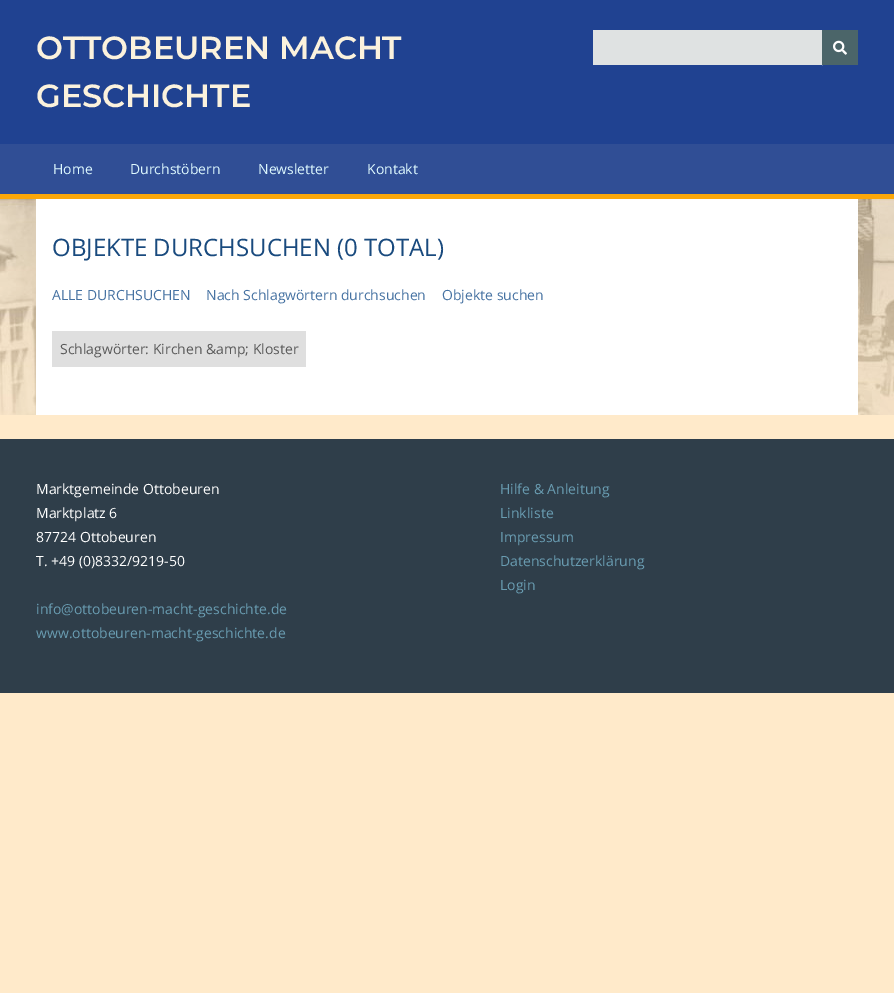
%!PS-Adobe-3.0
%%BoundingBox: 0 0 894 993
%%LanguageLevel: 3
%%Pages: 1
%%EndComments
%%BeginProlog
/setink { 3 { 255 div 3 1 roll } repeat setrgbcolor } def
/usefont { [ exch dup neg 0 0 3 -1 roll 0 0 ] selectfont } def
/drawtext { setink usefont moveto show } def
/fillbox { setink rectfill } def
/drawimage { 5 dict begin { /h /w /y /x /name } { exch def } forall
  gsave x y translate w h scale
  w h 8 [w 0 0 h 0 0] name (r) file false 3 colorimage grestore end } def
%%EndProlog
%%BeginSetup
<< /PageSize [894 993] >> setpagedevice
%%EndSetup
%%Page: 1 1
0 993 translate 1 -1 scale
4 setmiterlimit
0 0 894 993 255 234 202 fillbox
0 0 894 144 32 66 145 fillbox
822 65 1 1 77 104 167 fillbox
(OTTOBEUREN MACHT) 36 59 /Montserrat-SemiBold 32 251 242 221 drawtext
(GESCHICHTE) 36 107 /Montserrat-SemiBold 32 251 242 221 drawtext
593 30 229 35 223 226 226 fillbox
822 30 36 35 75 101 105 fillbox
(assets/img1.rgb) 833 40 14 15 drawimage
0 144 894 50 48 78 149 fillbox
0 194 894 5 251 167 9 fillbox
(Home) 53 174 /OpenSans-Regular 14 222 249 255 drawtext
(Durchstöbern) 130 174 /OpenSans-Regular 14 222 249 255 drawtext
(Newsletter) 258 174 /OpenSans-Regular 14 222 249 255 drawtext
(Kontakt) 367 174 /OpenSans-Regular 14 222 249 255 drawtext
(assets/img2.rgb) 0 199 894 216 drawimage
36 199 822 216 255 255 255 fillbox
(OBJEKTE DURCHSUCHEN \(0 TOTAL\)) 52 256 /OpenSans-Regular 24 25 74 126 drawtext
(ALLE DURCHSUCHEN) 52 300 /OpenSans-Regular 14 70 114 162 drawtext
(Nach Schlagwörtern durchsuchen) 206 300 /OpenSans-Regular 14 70 114 162 drawtext
(Objekte suchen) 442 300 /OpenSans-Regular 14 70 114 162 drawtext
52 331 254 36 223 223 223 fillbox
(Schlagwörter: Kirchen &amp; Kloster) 60 354 /OpenSans-Regular 14 90 90 90 drawtext
0 439 894 254 47 62 74 fillbox
(Marktgemeinde Ottobeuren) 36 494 /OpenSans-Regular 14 255 255 255 drawtext
(Marktplatz 6) 36 518 /OpenSans-Regular 14 255 255 255 drawtext
(87724 Ottobeuren) 36 542 /OpenSans-Regular 14 255 255 255 drawtext
(T. +49 \(0\)8332/9219-50) 36 566 /OpenSans-Regular 14 255 255 255 drawtext
(info@ottobeuren-macht-geschichte.de) 36 614 /OpenSans-Regular 14 105 156 177 drawtext
(www.ottobeuren-macht-geschichte.de) 36 638 /OpenSans-Regular 14 105 156 177 drawtext
(Hilfe & Anleitung) 500 494 /OpenSans-Regular 14 105 156 177 drawtext
(Linkliste) 500 518 /OpenSans-Regular 14 105 156 177 drawtext
(Impressum) 500 542 /OpenSans-Regular 14 105 156 177 drawtext
(Datenschutzerklärung) 500 566 /OpenSans-Regular 14 105 156 177 drawtext
(Login) 500 590 /OpenSans-Regular 14 105 156 177 drawtext
showpage
%%EOF
